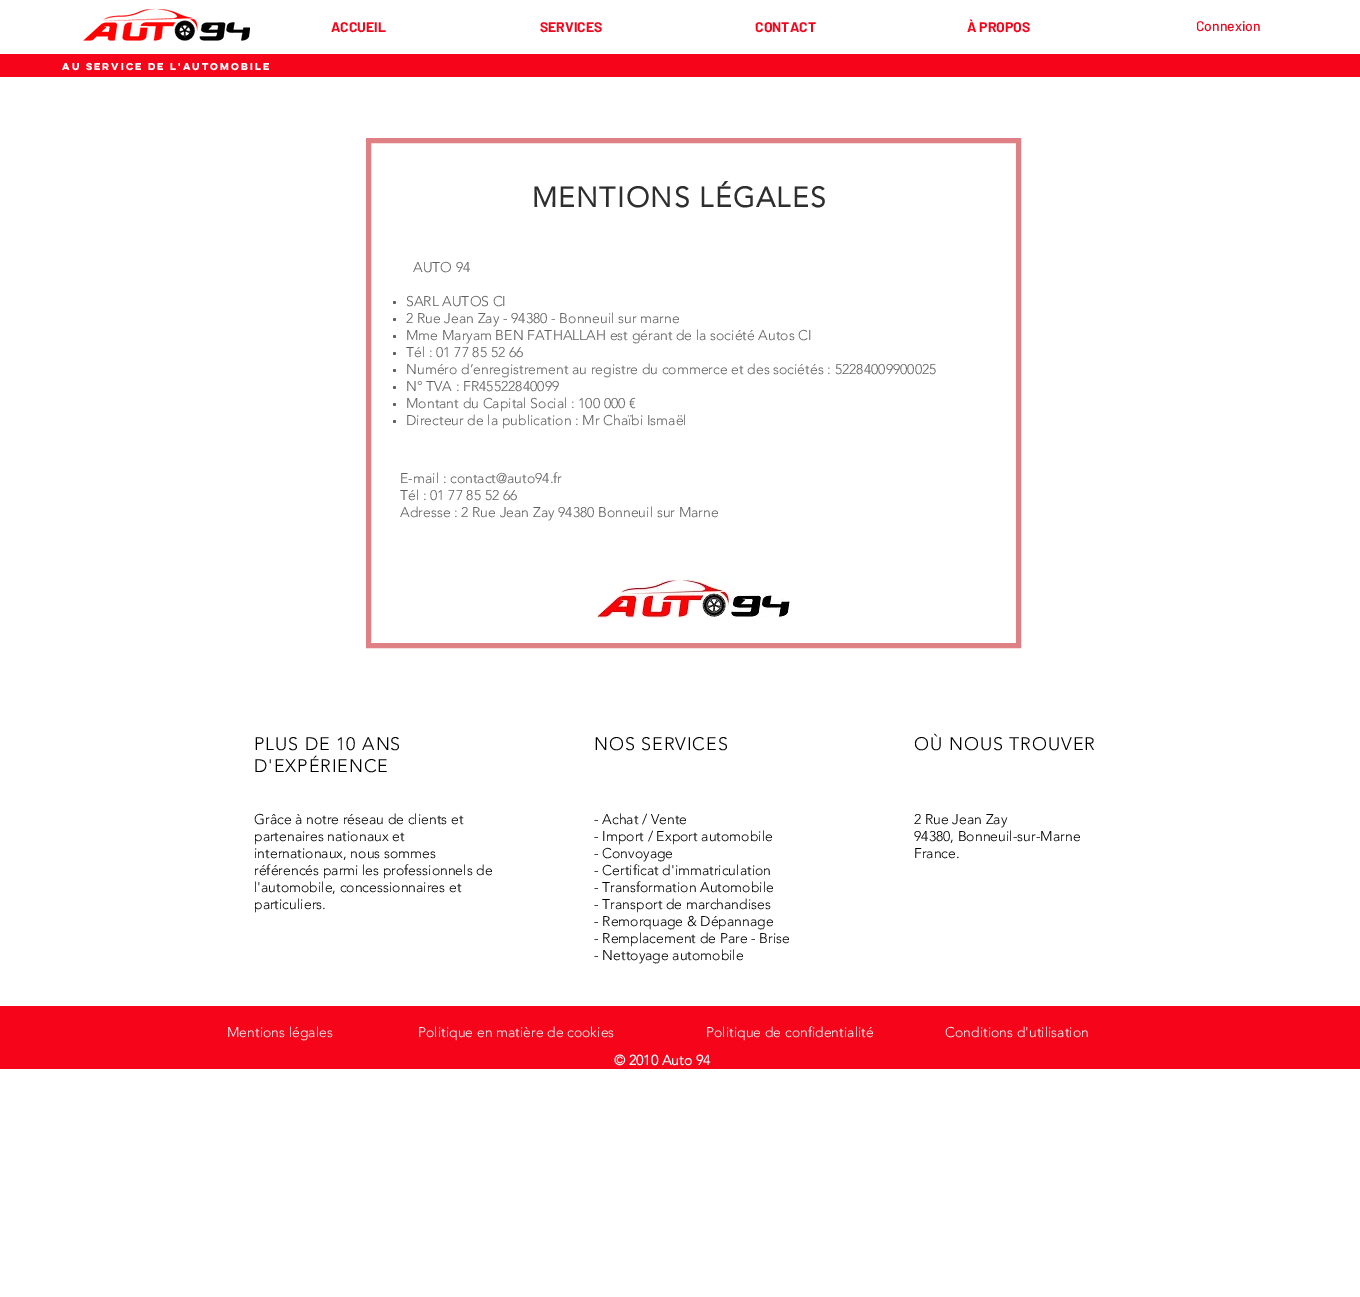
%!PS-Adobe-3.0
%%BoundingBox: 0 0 1360 1297
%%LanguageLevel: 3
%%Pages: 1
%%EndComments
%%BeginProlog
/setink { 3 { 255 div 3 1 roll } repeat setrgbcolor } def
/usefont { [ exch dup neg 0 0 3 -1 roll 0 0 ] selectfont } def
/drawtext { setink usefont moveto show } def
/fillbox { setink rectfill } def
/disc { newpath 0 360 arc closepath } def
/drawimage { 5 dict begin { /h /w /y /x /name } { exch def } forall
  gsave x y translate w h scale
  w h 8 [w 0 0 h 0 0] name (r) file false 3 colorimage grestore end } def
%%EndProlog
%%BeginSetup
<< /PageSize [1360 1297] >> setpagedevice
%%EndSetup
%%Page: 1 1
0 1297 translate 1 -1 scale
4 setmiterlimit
0 0 1360 1297 255 255 255 fillbox
(assets/img1.rgb) 83 9 167 32 drawimage
(ACCUEIL) 331 32 /Barlow-Bold 14 246 4 25 drawtext
(SERVICES) 540 32 /Barlow-Bold 14 246 4 25 drawtext
(CONTACT) 755 32 /Barlow-Bold 14 246 4 25 drawtext
(À PROPOS) 967 32 /Barlow-Bold 14 246 4 25 drawtext
(Connexion) 1196 31 /Barlow-Medium 14 246 4 25 drawtext
0 54 1360 23 246 4 25 fillbox
(AU SERVICE DE L'AUTOMOBILE) 62 70 /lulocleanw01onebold-Bold 9 255 255 255 drawtext
/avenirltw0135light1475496-Bold 28 usefont
47 46 46 setink
532 207 moveto 1.4 0 (MENTIONS LÉGALES) ashow
222 128 132 setink
5 setlinewidth
368.5 140.5 650 505 rectstroke
(AUTO 94) 413 272 /avenirltw0135light1475496-Light 14 96 94 94 drawtext
394.5 302.5 1.5 disc fill
(SARL AUTOS CI) 406 306 /avenirltw0135light1475496-Light 14 96 94 94 drawtext
394.5 319.5 1.5 disc fill
(2 Rue Jean Zay - 94380 - Bonneuil sur marne) 406 323 /avenirltw0135light1475496-Light 14 96 94 94 drawtext
394.5 336.5 1.5 disc fill
(Mme Maryam BEN FATHALLAH est gérant de la société Autos CI) 406 340 /avenirltw0135light1475496-Light 14 96 94 94 drawtext
394.5 353.5 1.5 disc fill
(Tél : 01 77 85 52 66) 406 357 /avenirltw0135light1475496-Light 14 96 94 94 drawtext
394.5 370.5 1.5 disc fill
(Numéro d’enregistrement au registre du commerce et des sociétés : 52284009900025) 406 374 /avenirltw0135light1475496-Light 14 96 94 94 drawtext
394.5 387.5 1.5 disc fill
(N° TVA : FR45522840099) 406 391 /avenirltw0135light1475496-Light 14 96 94 94 drawtext
394.5 404.5 1.5 disc fill
(Montant du Capital Social : 100 000 €) 406 408 /avenirltw0135light1475496-Light 14 96 94 94 drawtext
394.5 421.5 1.5 disc fill
(Directeur de la publication : Mr Chaïbi Ismaël) 406 425 /avenirltw0135light1475496-Light 14 96 94 94 drawtext
(assets/img2.rgb) 597 578 193 40 drawimage
(E-mail : contact@auto94.fr) 400 483 /avenirltw0135light1475496-Light 14 96 94 94 drawtext
(Tél : 01 77 85 52 66) 400 500 /avenirltw0135light1475496-Light 14 96 94 94 drawtext
(Adresse : 2 Rue Jean Zay 94380 Bonneuil sur Marne) 400 517 /avenirltw0135light1475496-Light 14 96 94 94 drawtext
/avenirltw0135light1475496-Light 18 usefont
0 0 0 setink
254 750 moveto 0.9 0 (PLUS DE 10 ANS) ashow
254 772 moveto 0.9 0 (D'EXPÉRIENCE) ashow
594 750 moveto 0.9 0 (NOS SERVICES) ashow
914 750 moveto 0.9 0 (OÙ NOUS TROUVER) ashow
(Grâce à notre réseau de clients et) 254 824 /avenirltw0135light1475496-Light 14 0 0 0 drawtext
(partenaires nationaux et) 254 841 /avenirltw0135light1475496-Light 14 0 0 0 drawtext
(internationaux, nous sommes) 254 858 /avenirltw0135light1475496-Light 14 0 0 0 drawtext
(référencés parmi les professionnels de) 254 875 /avenirltw0135light1475496-Light 14 0 0 0 drawtext
(l'automobile, concessionnaires et) 254 892 /avenirltw0135light1475496-Light 14 0 0 0 drawtext
(particuliers.) 254 909 /avenirltw0135light1475496-Light 14 0 0 0 drawtext
(- Achat / Vente) 594 824 /avenirltw0135light1475496-Light 14 0 0 0 drawtext
(- Import / Export automobile) 594 841 /avenirltw0135light1475496-Light 14 0 0 0 drawtext
(- Convoyage) 594 858 /avenirltw0135light1475496-Light 14 0 0 0 drawtext
(- Certificat d'immatriculation) 594 875 /avenirltw0135light1475496-Light 14 0 0 0 drawtext
(- Transformation Automobile) 594 892 /avenirltw0135light1475496-Light 14 0 0 0 drawtext
(- Transport de marchandises) 594 909 /avenirltw0135light1475496-Light 14 0 0 0 drawtext
(- Remorquage & Dépannage) 594 926 /avenirltw0135light1475496-Light 14 0 0 0 drawtext
(- Remplacement de Pare - Brise) 594 943 /avenirltw0135light1475496-Light 14 0 0 0 drawtext
(- Nettoyage automobile) 594 960 /avenirltw0135light1475496-Light 14 0 0 0 drawtext
(2 Rue Jean Zay) 914 824 /avenirltw0135light1475496-Light 14 0 0 0 drawtext
(94380, Bonneuil-sur-Marne) 914 841 /avenirltw0135light1475496-Light 14 0 0 0 drawtext
(France.) 914 858 /avenirltw0135light1475496-Light 14 0 0 0 drawtext
0 1006 1360 63 246 4 25 fillbox
(Mentions légales) 227 1037 /avenirltw0135light1475496-Light 14 255 255 255 drawtext
(Politique en matière de cookies) 418 1037 /avenirltw0135light1475496-Light 14 255 255 255 drawtext
(Politique de confidentialité) 706 1037 /avenirltw0135light1475496-Light 14 255 255 255 drawtext
(Conditions d'utilisation) 945 1037 /avenirltw0135light1475496-Light 14 255 255 255 drawtext
(© 2010 Auto 94) 614 1065 /avenirltw0135light1475496-Bold 14 255 255 255 drawtext
showpage
%%EOF
